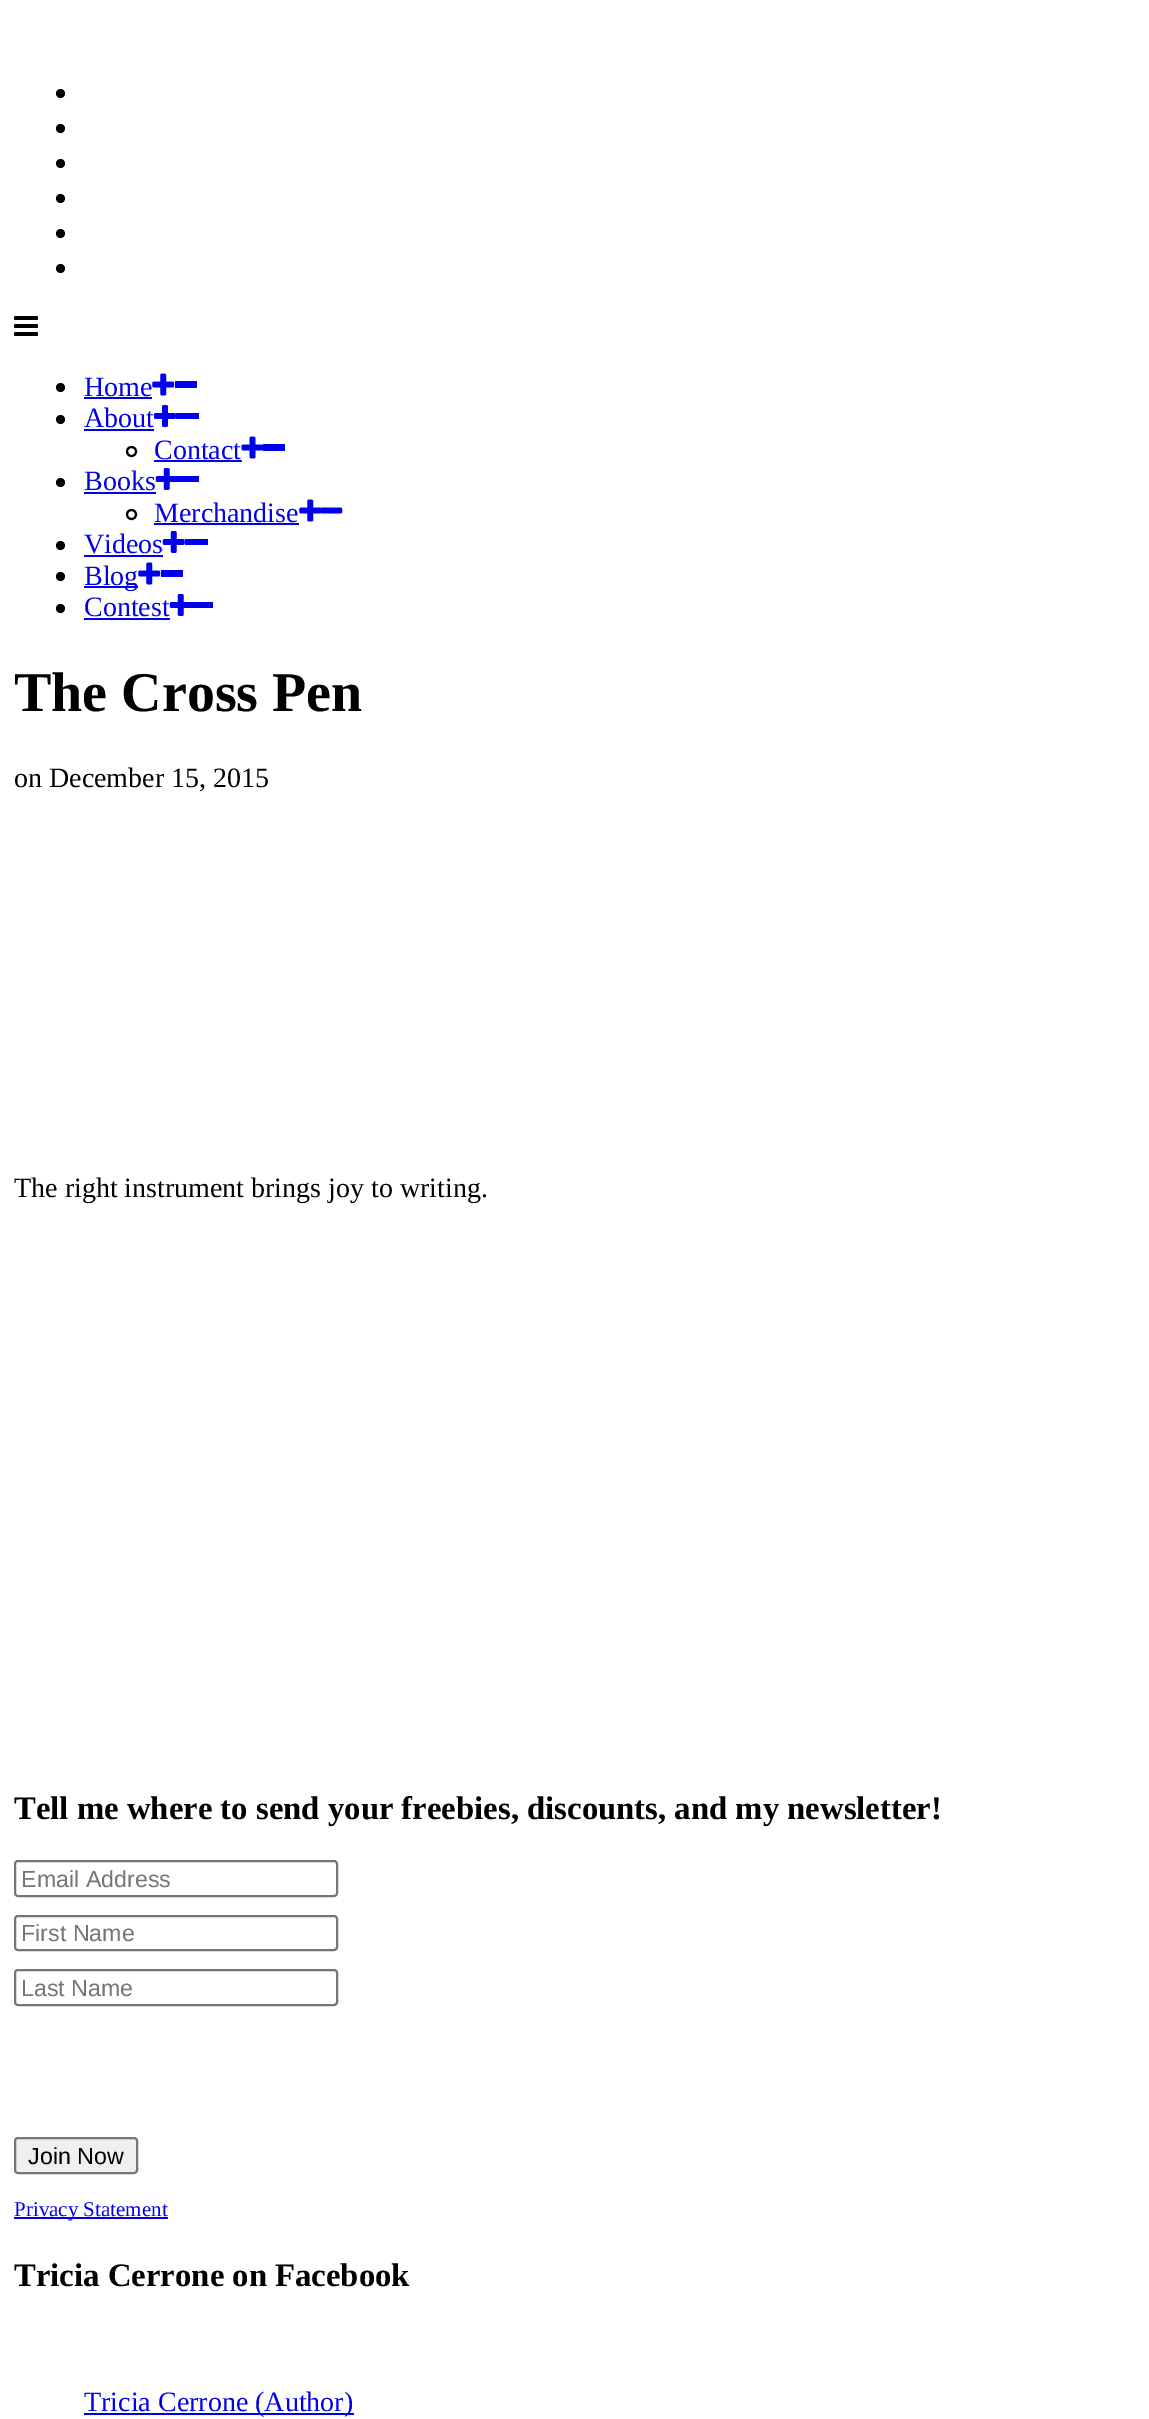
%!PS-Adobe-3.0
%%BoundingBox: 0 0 1149 2419
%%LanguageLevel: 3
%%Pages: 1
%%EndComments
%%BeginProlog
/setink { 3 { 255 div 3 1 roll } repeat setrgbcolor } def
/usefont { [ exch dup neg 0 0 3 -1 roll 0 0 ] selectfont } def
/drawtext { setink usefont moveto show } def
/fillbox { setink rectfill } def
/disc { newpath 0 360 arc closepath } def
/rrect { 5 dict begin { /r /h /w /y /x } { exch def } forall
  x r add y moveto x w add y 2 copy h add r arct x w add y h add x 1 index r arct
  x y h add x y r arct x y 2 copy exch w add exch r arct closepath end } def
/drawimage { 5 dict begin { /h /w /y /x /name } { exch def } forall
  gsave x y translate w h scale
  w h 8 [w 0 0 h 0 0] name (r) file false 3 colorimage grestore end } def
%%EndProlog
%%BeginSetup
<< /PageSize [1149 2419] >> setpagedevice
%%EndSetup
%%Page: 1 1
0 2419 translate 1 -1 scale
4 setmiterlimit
0 0 1149 2419 255 255 255 fillbox
0 0 0 setink
60.5 93.5 4.5 disc fill
60.5 128.5 4.5 disc fill
60.5 163.5 4.5 disc fill
60.5 198.5 4.5 disc fill
60.5 233.5 4.5 disc fill
60.5 268.5 4.5 disc fill
(assets/img1.rgb) 14 316 24 20 drawimage
60.5 387.5 4.5 disc fill
(Home) 84 396 /LiberationSerif-Regular 28 0 0 238 drawtext
84 397 68 2 0 0 238 fillbox
(assets/img2.rgb) 152 373 23 23 drawimage
175 381 22 7 0 0 238 fillbox
0 0 0 setink
60.5 419.5 4.5 disc fill
(About) 84 427 /LiberationSerif-Regular 28 0 0 238 drawtext
84 429 70 2 0 0 238 fillbox
(assets/img3.rgb) 154 405 22 22 drawimage
176 413 23 6 0 0 238 fillbox
0 0 0 setink
2 setlinewidth
131.5 451.5 4.5 disc stroke
(Contact) 154 459 /LiberationSerif-Regular 28 0 0 238 drawtext
154 460 88 2 0 0 238 fillbox
(assets/img4.rgb) 241 436 22 23 drawimage
263 444 22 7 0 0 238 fillbox
0 0 0 setink
60.5 482.5 4.5 disc fill
(Books) 84 490 /LiberationSerif-Regular 28 0 0 238 drawtext
84 492 72 2 0 0 238 fillbox
(assets/img5.rgb) 155 468 22 22 drawimage
177 476 22 6 0 0 238 fillbox
0 0 0 setink
131.5 514.5 4.5 disc stroke
(Merchandise) 154 522 /LiberationSerif-Regular 28 0 0 238 drawtext
154 523 145 2 0 0 238 fillbox
(assets/img6.rgb) 299 499 22 23 drawimage
(assets/img7.rgb) 320 507 23 7 drawimage
0 0 0 setink
60.5 545.5 4.5 disc fill
(Videos) 84 553 /LiberationSerif-Regular 28 0 0 238 drawtext
84 555 79 2 0 0 238 fillbox
(assets/img8.rgb) 162 531 23 22 drawimage
185 539 23 6 0 0 238 fillbox
0 0 0 setink
60.5 576.5 4.5 disc fill
84 586 54 2 0 0 238 fillbox
(Blog) 84 585 /LiberationSerif-Regular 28 0 0 238 drawtext
(assets/img2.rgb) 138 562 23 23 drawimage
161 570 22 7 0 0 238 fillbox
0 0 0 setink
60.5 608.5 4.5 disc fill
(Contest) 84 616 /LiberationSerif-Regular 28 0 0 238 drawtext
84 618 86 2 0 0 238 fillbox
(assets/img9.rgb) 169 594 22 22 drawimage
191 602 22 6 0 0 238 fillbox
(The Cross Pen) 14 711 /LiberationSerif-Bold 56 0 0 0 drawtext
(on December 15, 2015) 14 787 /LiberationSerif-Regular 28 0 0 0 drawtext
(The right instrument brings joy to writing.) 14 1197 /LiberationSerif-Regular 28 0 0 0 drawtext
(Tell me where to send your freebies, discounts, and my newsletter!) 14 1819 /LiberationSerif-Bold 32.75 0 0 0 drawtext
118 118 118 setink
15 1861 322 35 3 rrect stroke
(Email Address) 21 1887 /LiberationSans-Regular 23.25 117 117 117 drawtext
118 118 118 setink
15 1916 322 34 3 rrect stroke
(First Name) 21 1941 /LiberationSans-Regular 23.25 117 117 117 drawtext
118 118 118 setink
15 1970 322 35 3 rrect stroke
(Last Name) 21 1996 /LiberationSans-Regular 23.25 117 117 117 drawtext
239 239 239 setink
15 2138 122 35 3 rrect gsave fill grestore
118 118 118 setink
stroke
(Join Now) 28 2164 /LiberationSans-Regular 23.25 0 0 0 drawtext
14 2217 154 2 0 0 238 fillbox
(Privacy Statement) 14 2216 /LiberationSerif-Regular 21 0 0 238 drawtext
(Tricia Cerrone on Facebook) 14 2286 /LiberationSerif-Bold 32.75 0 0 0 drawtext
84 2413 270 2 0 0 238 fillbox
(Tricia Cerrone \(Author\)) 84 2411 /LiberationSerif-Regular 28 0 0 238 drawtext
showpage
%%EOF
